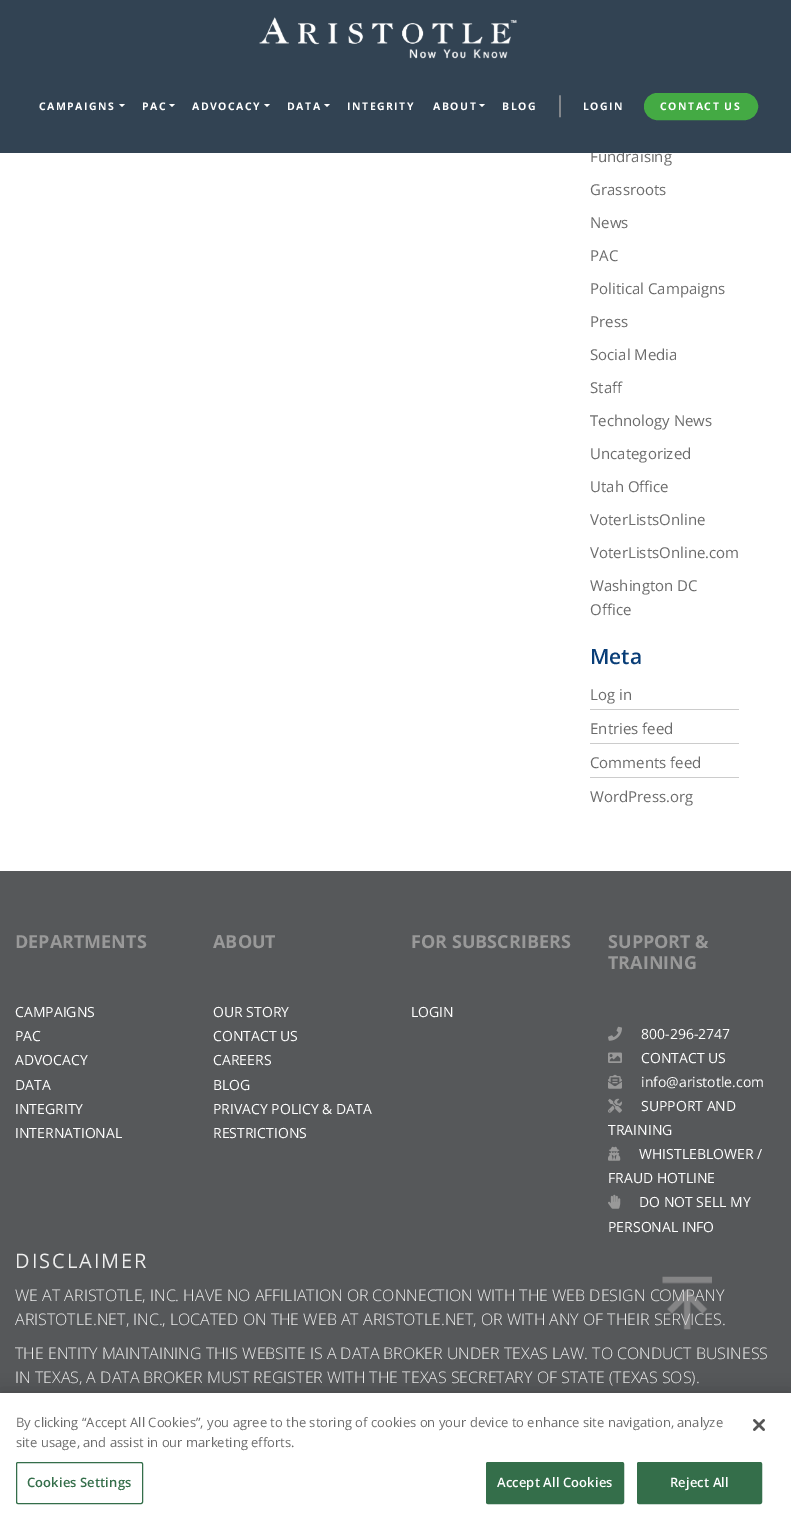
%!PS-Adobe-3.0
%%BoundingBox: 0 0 791 1525
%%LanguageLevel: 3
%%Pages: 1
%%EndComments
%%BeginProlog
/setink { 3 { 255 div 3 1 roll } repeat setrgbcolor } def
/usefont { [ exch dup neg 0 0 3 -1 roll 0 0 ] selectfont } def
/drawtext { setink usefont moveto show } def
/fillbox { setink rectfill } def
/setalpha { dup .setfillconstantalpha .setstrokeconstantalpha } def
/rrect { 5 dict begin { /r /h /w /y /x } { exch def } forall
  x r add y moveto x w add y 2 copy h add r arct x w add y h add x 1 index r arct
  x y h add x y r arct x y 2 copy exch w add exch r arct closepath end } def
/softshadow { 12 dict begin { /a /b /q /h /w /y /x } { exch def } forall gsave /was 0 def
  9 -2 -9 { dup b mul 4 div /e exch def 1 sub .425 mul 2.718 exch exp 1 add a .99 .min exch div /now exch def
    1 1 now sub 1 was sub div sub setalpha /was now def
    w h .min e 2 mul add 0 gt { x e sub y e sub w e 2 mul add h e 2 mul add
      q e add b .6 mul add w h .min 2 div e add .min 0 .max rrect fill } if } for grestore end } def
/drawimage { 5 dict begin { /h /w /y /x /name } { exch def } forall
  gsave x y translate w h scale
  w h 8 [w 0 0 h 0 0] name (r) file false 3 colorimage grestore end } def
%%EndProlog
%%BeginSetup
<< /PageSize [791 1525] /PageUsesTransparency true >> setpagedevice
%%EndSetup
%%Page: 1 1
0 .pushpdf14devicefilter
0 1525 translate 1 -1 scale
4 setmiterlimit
0 0 791 1525 255 255 255 fillbox
(Fundraising) 590 162 /OpenSans-Regular 15 107 107 107 drawtext
0 0 791 153 50 67 83 fillbox
(assets/img1.rgb) 259 17 258 42 drawimage
/OpenSans-Bold 10.5 usefont
255 255 255 setink
39 110 moveto 1.5 0 (CAMPAIGNS) ashow
119 104 moveto 125 104 lineto 122 107 lineto closepath fill
142 110 moveto 1.5 0 (PAC) ashow
169 104 moveto 175 104 lineto 172 107 lineto closepath fill
192 110 moveto 1.5 0 (ADVOCACY) ashow
264 104 moveto 270 104 lineto 267 107 lineto closepath fill
287 110 moveto 1.5 0 (DATA) ashow
324 104 moveto 330 104 lineto 327 107 lineto closepath fill
347 110 moveto 1.5 0 (INTEGRITY) ashow
433 110 moveto 1.5 0 (ABOUT) ashow
479 104 moveto 485 104 lineto 482 107 lineto closepath fill
502 110 moveto 1.5 0 (BLOG) ashow
(|) 554 112 /OpenSans-Regular 22 159 159 159 drawtext
/OpenSans-Bold 10.5 usefont
255 255 255 setink
583 110 moveto 1.5 0 (LOGIN) ashow
68 170 68 setink
644.5 93.5 113 26 13 rrect gsave fill grestore
stroke
255 255 255 setink
660 110 moveto 1.5 0 (CONTACT US) ashow
(Grassroots) 590 195 /OpenSans-Regular 15 107 107 107 drawtext
(News) 590 228 /OpenSans-Regular 15 107 107 107 drawtext
(PAC) 590 261 /OpenSans-Regular 15 107 107 107 drawtext
(Political Campaigns) 590 294 /OpenSans-Regular 15 107 107 107 drawtext
(Press) 590 327 /OpenSans-Regular 15 107 107 107 drawtext
(Social Media) 590 360 /OpenSans-Regular 15 107 107 107 drawtext
(Staff) 590 393 /OpenSans-Regular 15 107 107 107 drawtext
(Technology News) 590 426 /OpenSans-Regular 15 107 107 107 drawtext
(Uncategorized) 590 459 /OpenSans-Regular 15 107 107 107 drawtext
(Utah Office) 590 492 /OpenSans-Regular 15 107 107 107 drawtext
(VoterListsOnline) 590 525 /OpenSans-Regular 15 107 107 107 drawtext
(VoterListsOnline.com) 590 558 /OpenSans-Regular 15 107 107 107 drawtext
(Washington DC) 590 591 /OpenSans-Regular 15 107 107 107 drawtext
(Office) 590 615 /OpenSans-Regular 15 107 107 107 drawtext
(Meta) 590 664 /OpenSans-SemiBold 21 8 61 119 drawtext
590 709 149 1 204 204 204 fillbox
(Log in) 590 700 /OpenSans-Regular 15 107 107 107 drawtext
590 743 149 1 204 204 204 fillbox
(Entries feed) 590 734 /OpenSans-Regular 15 107 107 107 drawtext
590 777 149 1 204 204 204 fillbox
(Comments feed) 590 768 /OpenSans-Regular 15 107 107 107 drawtext
(WordPress.org) 590 802 /OpenSans-Regular 15 107 107 107 drawtext
0 871 791 522 86 88 90 fillbox
(DEPARTMENTS) 15 948 /OpenSans-Bold 18 153 153 153 drawtext
(CAMPAIGNS) 15 1017 /OpenSans-Regular 14 255 255 255 drawtext
(PAC) 15 1041 /OpenSans-Regular 14 255 255 255 drawtext
(ADVOCACY) 15 1065 /OpenSans-Regular 14 255 255 255 drawtext
(DATA) 15 1090 /OpenSans-Regular 14 255 255 255 drawtext
(INTEGRITY) 15 1114 /OpenSans-Regular 14 255 255 255 drawtext
(INTERNATIONAL) 15 1138 /OpenSans-Regular 14 255 255 255 drawtext
(ABOUT) 213 948 /OpenSans-Bold 18 153 153 153 drawtext
(OUR STORY) 213 1017 /OpenSans-Regular 14 255 255 255 drawtext
(CONTACT US) 213 1041 /OpenSans-Regular 14 255 255 255 drawtext
(CAREERS) 213 1065 /OpenSans-Regular 14 255 255 255 drawtext
(BLOG) 213 1090 /OpenSans-Regular 14 255 255 255 drawtext
(PRIVACY POLICY & DATA) 213 1114 /OpenSans-Regular 14 255 255 255 drawtext
(RESTRICTIONS) 213 1138 /OpenSans-Regular 14 255 255 255 drawtext
(FOR SUBSCRIBERS) 411 948 /OpenSans-Bold 18 153 153 153 drawtext
(LOGIN) 411 1017 /OpenSans-Regular 14 255 255 255 drawtext
(SUPPORT &) 608 948 /OpenSans-Bold 18 153 153 153 drawtext
(TRAINING) 608 969 /OpenSans-Bold 18 153 153 153 drawtext
(assets/img2.rgb) 608 1026 14 15 drawimage
(800-296-2747) 641 1039 /OpenSans-Regular 14 255 255 255 drawtext
(assets/img3.rgb) 608 1052 14 11 drawimage
(CONTACT US) 641 1063 /OpenSans-Regular 14 255 255 255 drawtext
(assets/img4.rgb) 608 1074 14 15 drawimage
(info@aristotle.com) 641 1087 /OpenSans-Regular 14 255 255 255 drawtext
(assets/img5.rgb) 608 1098 14 15 drawimage
(SUPPORT AND) 641 1111 /OpenSans-Regular 14 255 255 255 drawtext
(TRAINING) 608 1135 /OpenSans-Regular 14 255 255 255 drawtext
(assets/img6.rgb) 608 1146 13 15 drawimage
(WHISTLEBLOWER /) 639 1159 /OpenSans-Regular 14 255 255 255 drawtext
(FRAUD HOTLINE) 608 1183 /OpenSans-Regular 14 255 255 255 drawtext
(assets/img7.rgb) 608 1194 13 15 drawimage
(DO NOT SELL MY) 639 1207 /OpenSans-Regular 14 255 255 255 drawtext
(PERSONAL INFO) 608 1232 /OpenSans-Regular 14 255 255 255 drawtext
/OpenSans-Regular 20 usefont
238 238 238 setink
15 1268 moveto 2 0 (DISCLAIMER) ashow
(WE AT ARISTOTLE, INC. HAVE NO AFFILIATION OR CONNECTION WITH THE WEB DESIGN COMPANY) 15 1301 /OpenSans-Light 16 238 238 238 drawtext
(ARISTOTLE.NET, INC., LOCATED ON THE WEB AT ARISTOTLE.NET, OR WITH ANY OF THEIR SERVICES.) 15 1325 /OpenSans-Light 16 238 238 238 drawtext
(THE ENTITY MAINTAINING THIS WEBSITE IS A DATA BROKER UNDER TEXAS LAW. TO CONDUCT BUSINESS) 15 1359 /OpenSans-Light 16 238 238 238 drawtext
(IN TEXAS, A DATA BROKER MUST REGISTER WITH THE TEXAS SECRETARY OF STATE \(TEXAS SOS\).) 15 1383 /OpenSans-Light 16 238 238 238 drawtext
(assets/img8.rgb) 662 1276 50 54 drawimage
0 0 0 setink
0 1393 791 132 0 9 0.2 softshadow
0 1393 791 132 255 255 255 fillbox
(By clicking “Accept All Cookies”, you agree to the storing of cookies on your device to enhance site navigation, analyze) 16 1427 /OpenSans-Regular 13 107 107 107 drawtext
(site usage, and assist in our marketing efforts.) 16 1447 /OpenSans-Regular 13 107 107 107 drawtext
52 110 74 setink
16.5 1462.5 126 41 1.5 rrect stroke
/OpenSans-SemiBold 13 usefont
27 1487 moveto 0.1 0 (Cookies Settings) ashow
486.5 1462.5 137 41 1.5 rrect gsave fill grestore
stroke
255 255 255 setink
497 1487 moveto 0.1 0 (Accept All Cookies) ashow
52 110 74 setink
637.5 1462.5 124 41 1.5 rrect gsave fill grestore
stroke
255 255 255 setink
670 1487 moveto 0.1 0 (Reject All) ashow
(assets/img9.rgb) 753 1419 12 12 drawimage
.poppdf14devicefilter showpage
%%EOF
